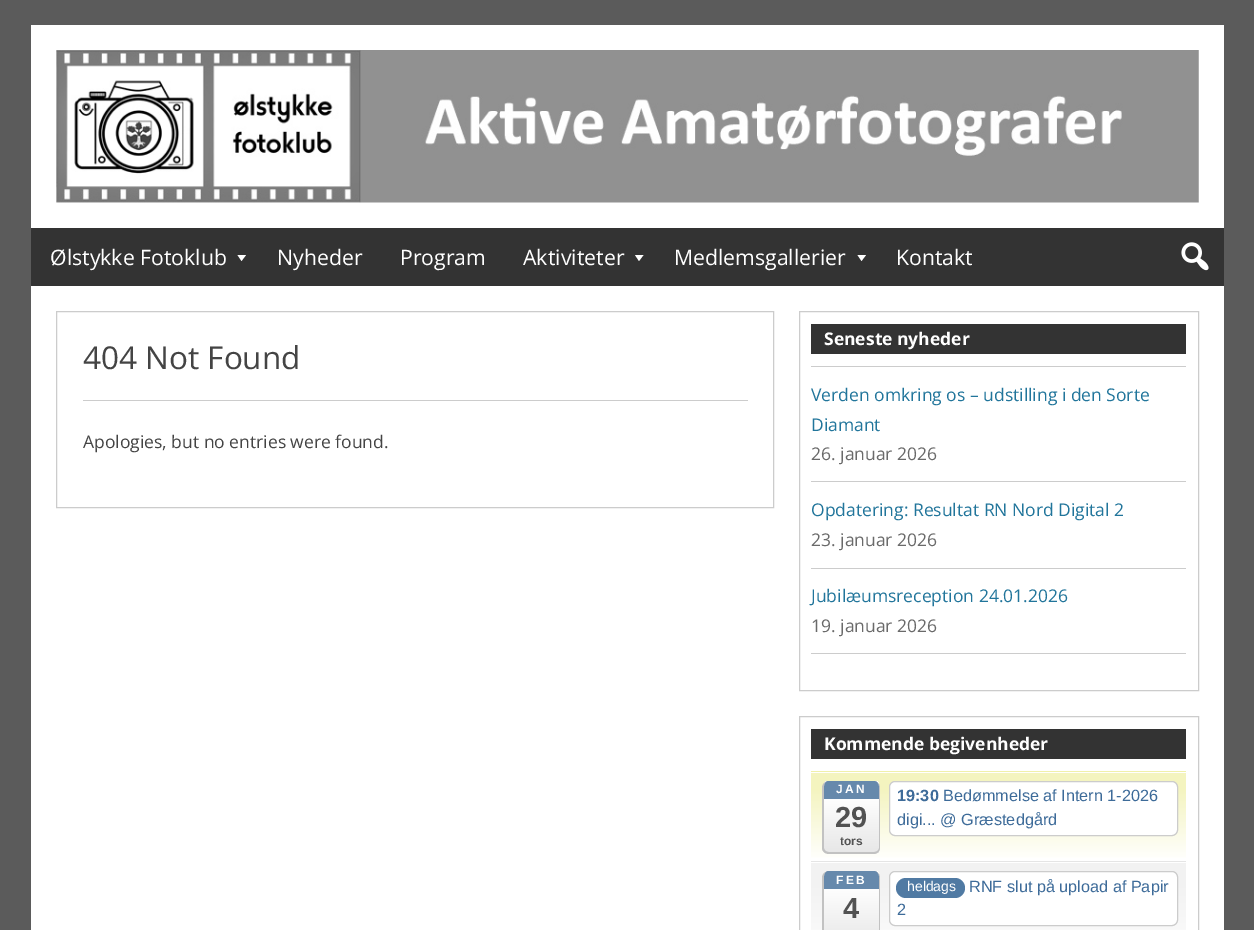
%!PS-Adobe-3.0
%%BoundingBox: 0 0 1254 930
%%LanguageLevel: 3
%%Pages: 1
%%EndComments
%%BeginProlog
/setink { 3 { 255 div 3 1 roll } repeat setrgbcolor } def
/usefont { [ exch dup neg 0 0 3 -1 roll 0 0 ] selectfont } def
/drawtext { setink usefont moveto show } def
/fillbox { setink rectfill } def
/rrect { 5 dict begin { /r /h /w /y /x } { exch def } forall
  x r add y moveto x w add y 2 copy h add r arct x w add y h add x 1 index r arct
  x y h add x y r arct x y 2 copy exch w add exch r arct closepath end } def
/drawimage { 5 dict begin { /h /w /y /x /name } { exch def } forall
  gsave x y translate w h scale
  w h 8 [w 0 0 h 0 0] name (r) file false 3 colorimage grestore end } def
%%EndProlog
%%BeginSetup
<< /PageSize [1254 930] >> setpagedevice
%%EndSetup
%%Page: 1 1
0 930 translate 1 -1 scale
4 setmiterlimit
0 0 1254 930 91 91 91 fillbox
31 25 1193 905 255 255 255 fillbox
(assets/img1.rgb) 56 50 1143 153 drawimage
31 228 1193 58 51 51 51 fillbox
(Ølstykke Fotoklub) 50 265 /OpenSans-Regular 21.25 255 255 255 drawtext
246 255 moveto 241.5 261 lineto 237.5 255 lineto closepath fill
(Nyheder) 277 265 /OpenSans-Regular 21.25 255 255 255 drawtext
(Program) 400 265 /OpenSans-Regular 21.25 255 255 255 drawtext
(Aktiviteter) 523 265 /OpenSans-Regular 21.25 255 255 255 drawtext
643.5 255 moveto 639 261 lineto 635 255 lineto closepath fill
(Medlemsgallerier) 674 265 /OpenSans-Regular 21.25 255 255 255 drawtext
866 255 moveto 861.5 261 lineto 857.5 255 lineto closepath fill
(Kontakt) 896 265 /OpenSans-Regular 21.25 255 255 255 drawtext
(assets/img2.rgb) 1181 242 28 29 drawimage
204 204 204 setink
56.5 311.5 717 196 rectstroke
83 400 665 1 204 204 204 fillbox
(404 Not Found) 83 369 /OpenSans-Regular 31.5 68 68 68 drawtext
(Apologies, but no entries were found.) 83 448 /OpenSans-Regular 17.5 68 68 68 drawtext
204 204 204 setink
799.5 311.5 399 379 rectstroke
811 324 375 30 51 51 51 fillbox
(Seneste nyheder) 824 345 /OpenSans-Bold 17.5 255 255 255 drawtext
811 366 375 1 204 204 204 fillbox
811 481 375 1 204 204 204 fillbox
(Verden omkring os – udstilling i den Sorte) 811 401 /OpenSans-Regular 17.5 33 117 155 drawtext
(Diamant) 811 431 /OpenSans-Regular 17.5 33 117 155 drawtext
(26. januar 2026) 811 460 /OpenSans-Regular 17.5 106 106 106 drawtext
811 568 375 1 204 204 204 fillbox
(Opdatering: Resultat RN Nord Digital 2) 811 516 /OpenSans-Regular 17.5 33 117 155 drawtext
(23. januar 2026) 811 546 /OpenSans-Regular 17.5 106 106 106 drawtext
811 653 375 1 204 204 204 fillbox
(Jubilæumsreception 24.01.2026) 811 602 /OpenSans-Regular 17.5 33 117 155 drawtext
(19. januar 2026) 811 632 /OpenSans-Regular 17.5 106 106 106 drawtext
204 204 204 setink
799.5 716.5 399 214 rectstroke
811 729 375 30 51 51 51 fillbox
(Kommende begivenheder) 824 750 /OpenSans-Bold 17.5 255 255 255 drawtext
gsave 811 773 moveto 1186 773 lineto 1186 858 lineto 811 858 lineto closepath clip newpath
<< /ShadingType 2 /ColorSpace /DeviceRGB /Coords [999 773 999 861] /Extend [true true] /Function << /FunctionType 3 /Domain [0 1] /Functions [<< /FunctionType 2 /Domain [0 1] /C0 [0.957 0.957 0.749] /C1 [0.957 0.957 0.749] /N 1 >> << /FunctionType 2 /Domain [0 1] /C0 [0.957 0.957 0.749] /C1 [1 1 1] /N 1 >>] /Bounds [0.18] /Encode [0 1 0 1] >> >> shfill grestore
811 771 375 1 240 240 169 fillbox
gsave
823 781 57 73 6 rrect clip newpath
gsave 824 781 moveto 879 781 lineto 879 853 lineto 824 853 lineto closepath clip newpath
<< /ShadingType 2 /ColorSpace /DeviceRGB /Coords [851 781 851 853] /Extend [true true] /Function << /FunctionType 3 /Domain [0 1] /Functions [<< /FunctionType 2 /Domain [0 1] /C0 [1 1 1] /C1 [1 1 1] /N 1 >> << /FunctionType 2 /Domain [0 1] /C0 [1 1 1] /C1 [0.906 0.906 0.906] /N 1 >>] /Bounds [0.21] /Encode [0 1 0 1] >> >> shfill grestore
grestore
194 194 194 setink
829 781 moveto 874 781 lineto 877 781 880 784 880 788 curveto 880 848 lineto 880 851 877 854 874 854 curveto 829 854 lineto 825 854 822 851 822 848 curveto 822 788 lineto 822 784 825 781 829 781 curveto closepath 829 781 moveto 874 781 lineto 877 781 879 784 879 788 curveto 879 848 lineto 879 850 877 852 874 852 curveto 829 852 lineto 826 852 824 850 824 848 curveto 824 788 lineto 824 784 826 781 829 781 curveto closepath eofill
102 137 172 setink
829 781 moveto 874 781 lineto 877 781 879 784 879 788 curveto 879 799 lineto 824 799 lineto 824 790 lineto 824 787 824 781 829 781 curveto closepath fill
/LiberationSans-Bold 12 usefont
255 255 255 setink
836 793 moveto 2.5 0 (JAN) ashow
(29) 835 827 /LiberationSans-Bold 29 82 82 82 drawtext
(tors) 840 845 /LiberationSans-Bold 12 82 82 82 drawtext
255 255 255 setink
889.5 781.5 288 54 5.5 rrect gsave fill grestore
204 204 204 setink
stroke
(19:30) 897 801 /LiberationSans-Bold 16.25 61 107 153 drawtext
(Bedømmelse af Intern 1-2026) 943 801 /LiberationSans-Regular 16.25 61 107 153 drawtext
(digi... @ Græstedgård) 897 825 /LiberationSans-Regular 16.25 61 107 153 drawtext
gsave 811 863 moveto 1186 863 lineto 1186 930 lineto 811 930 lineto closepath clip newpath
<< /ShadingType 2 /ColorSpace /DeviceRGB /Coords [999 863 999 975] /Extend [true true] /Function << /FunctionType 3 /Domain [0 1] /Functions [<< /FunctionType 2 /Domain [0 1] /C0 [0.949 0.949 0.949] /C1 [0.949 0.949 0.949] /N 1 >> << /FunctionType 2 /Domain [0 1] /C0 [0.949 0.949 0.949] /C1 [1 1 1] /N 1 >>] /Bounds [0.14] /Encode [0 1 0 1] >> >> shfill grestore
811 861 375 1 229 229 229 fillbox
gsave
823 871 57 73 6 rrect clip newpath
gsave 824 871 moveto 879 871 lineto 879 930 lineto 824 930 lineto closepath clip newpath
<< /ShadingType 2 /ColorSpace /DeviceRGB /Coords [851 871 851 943] /Extend [true true] /Function << /FunctionType 3 /Domain [0 1] /Functions [<< /FunctionType 2 /Domain [0 1] /C0 [1 1 1] /C1 [1 1 1] /N 1 >> << /FunctionType 2 /Domain [0 1] /C0 [1 1 1] /C1 [0.906 0.906 0.906] /N 1 >>] /Bounds [0.21] /Encode [0 1 0 1] >> >> shfill grestore
grestore
194 194 194 setink
829 871 moveto 874 871 lineto 877 871 880 874 880 878 curveto 880 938 lineto 880 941 877 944 874 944 curveto 829 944 lineto 825 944 822 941 822 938 curveto 822 878 lineto 822 874 825 871 829 871 curveto closepath 829 871 moveto 874 871 lineto 877 871 879 874 879 878 curveto 879 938 lineto 879 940 877 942 874 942 curveto 829 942 lineto 826 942 824 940 824 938 curveto 824 878 lineto 824 874 826 871 829 871 curveto closepath eofill
102 137 172 setink
829 871 moveto 874 871 lineto 877 871 879 874 879 878 curveto 879 889 lineto 824 889 lineto 824 880 lineto 824 877 824 871 829 871 curveto closepath fill
/LiberationSans-Bold 12 usefont
255 255 255 setink
836 884 moveto 2.5 0 (FEB) ashow
(4) 843 918 /LiberationSans-Bold 29 82 82 82 drawtext
255 255 255 setink
889.5 871.5 288 54 5.5 rrect gsave fill grestore
204 204 204 setink
stroke
80 122 163 setink
896 878 69 20 10 rrect fill
(heldags) 907 891 /LiberationSans-Regular 14 255 255 255 drawtext
(RNF slut på upload af Papir) 969 892 /LiberationSans-Regular 16.25 61 107 153 drawtext
(2) 897 915 /LiberationSans-Regular 16.25 61 107 153 drawtext
showpage
%%EOF
